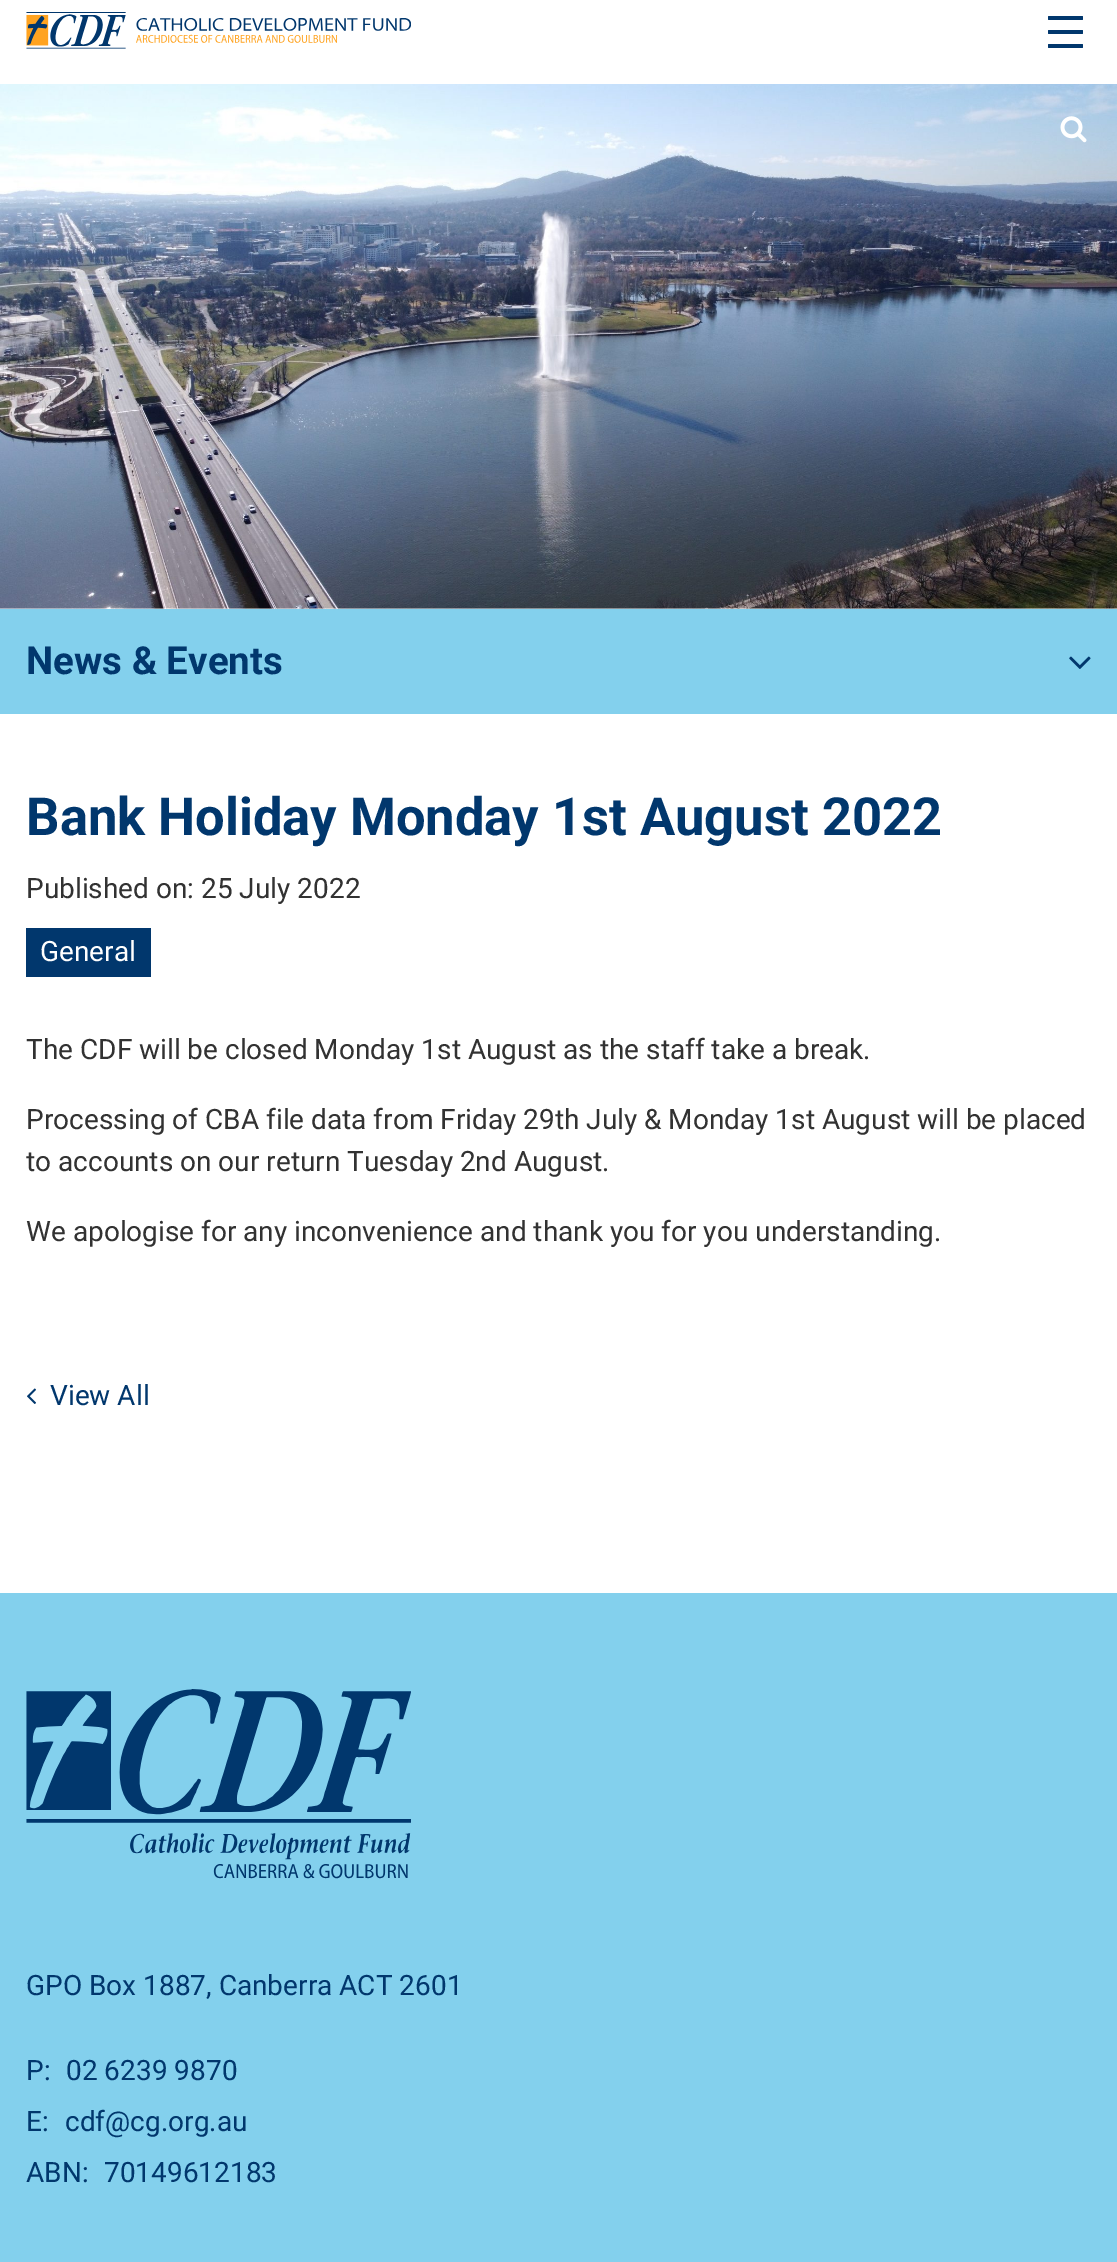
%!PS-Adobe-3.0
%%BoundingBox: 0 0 1117 2262
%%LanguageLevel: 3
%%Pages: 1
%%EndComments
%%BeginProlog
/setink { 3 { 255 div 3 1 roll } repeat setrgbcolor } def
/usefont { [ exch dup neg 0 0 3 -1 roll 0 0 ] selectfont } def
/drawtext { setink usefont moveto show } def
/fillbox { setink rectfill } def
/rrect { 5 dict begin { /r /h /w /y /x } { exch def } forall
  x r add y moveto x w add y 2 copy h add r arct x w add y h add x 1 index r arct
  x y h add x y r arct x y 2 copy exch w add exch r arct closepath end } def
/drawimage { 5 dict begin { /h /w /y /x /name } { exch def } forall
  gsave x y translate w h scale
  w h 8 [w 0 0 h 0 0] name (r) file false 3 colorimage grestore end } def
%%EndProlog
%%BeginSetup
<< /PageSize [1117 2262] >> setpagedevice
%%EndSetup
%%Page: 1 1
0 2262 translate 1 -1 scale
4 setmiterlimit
0 0 1117 2262 255 255 255 fillbox
(assets/img1.rgb) 26 12 385 37 drawimage
1 55 109 setink
1048 30 35 4 1 rrect fill
1048 16 35 4 1 rrect fill
1048 44 35 4 1 rrect fill
(assets/img3.rgb) 0 84 1117 525 drawimage
(assets/img2.rgb) 1060 116 27 27 drawimage
0 609 1117 105 131 208 237 fillbox
(News & Events) 26 674 /Roboto-Bold 38.5 1 55 109 drawtext
(assets/img4.rgb) 1069 656 22 13 drawimage
(Bank Holiday Monday 1st August 2022) 26 835 /Roboto-Bold 52.5 1 55 109 drawtext
(Published on: 25 July 2022) 26 898 /Roboto-Regular 28 50 50 50 drawtext
26 928 125 49 1 55 109 fillbox
(General) 40 961 /Roboto-Regular 28 255 255 255 drawtext
(The CDF will be closed Monday 1st August as the staff take a break.) 26 1059 /Roboto-Regular 28 50 50 50 drawtext
(Processing of CBA file data from Friday 29th July & Monday 1st August will be placed) 26 1129 /Roboto-Regular 28 50 50 50 drawtext
(to accounts on our return Tuesday 2nd August.) 26 1171 /Roboto-Regular 28 50 50 50 drawtext
(We apologise for any inconvenience and thank you for you understanding.) 26 1241 /Roboto-Regular 28 50 50 50 drawtext
(assets/img5.rgb) 27 1388 9 16 drawimage
(View All) 50 1405 /Roboto-Regular 28 1 55 109 drawtext
0 1593 1117 669 131 208 237 fillbox
(assets/img6.rgb) 26 1689 385 190 drawimage
(GPO Box 1887, Canberra ACT 2601) 26 1995 /Roboto-Regular 28 1 55 109 drawtext
(P:) 26 2080 /Roboto-Regular 28 1 55 109 drawtext
(02 6239 9870) 66 2080 /Roboto-Regular 28 1 55 109 drawtext
(E:) 26 2131 /Roboto-Regular 28 1 55 109 drawtext
(cdf@cg.org.au) 65 2131 /Roboto-Regular 28 1 55 109 drawtext
(ABN:) 26 2182 /Roboto-Regular 28 1 55 109 drawtext
(70149612183) 104 2182 /Roboto-Regular 28 1 55 109 drawtext
showpage
%%EOF
